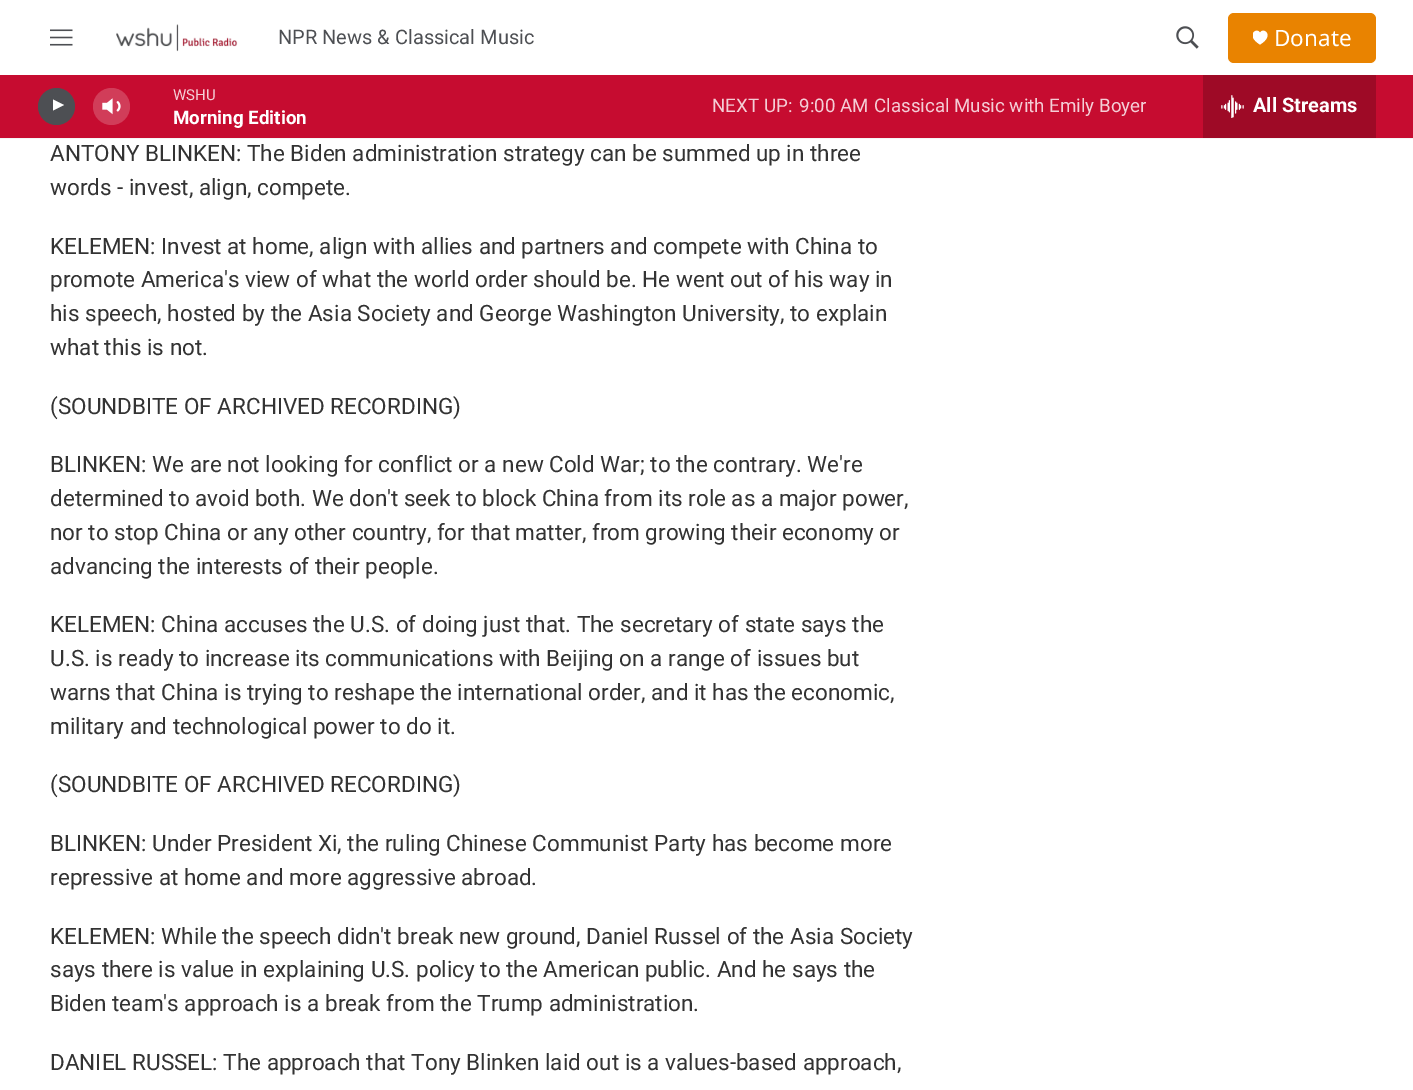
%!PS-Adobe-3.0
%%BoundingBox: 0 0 1413 1090
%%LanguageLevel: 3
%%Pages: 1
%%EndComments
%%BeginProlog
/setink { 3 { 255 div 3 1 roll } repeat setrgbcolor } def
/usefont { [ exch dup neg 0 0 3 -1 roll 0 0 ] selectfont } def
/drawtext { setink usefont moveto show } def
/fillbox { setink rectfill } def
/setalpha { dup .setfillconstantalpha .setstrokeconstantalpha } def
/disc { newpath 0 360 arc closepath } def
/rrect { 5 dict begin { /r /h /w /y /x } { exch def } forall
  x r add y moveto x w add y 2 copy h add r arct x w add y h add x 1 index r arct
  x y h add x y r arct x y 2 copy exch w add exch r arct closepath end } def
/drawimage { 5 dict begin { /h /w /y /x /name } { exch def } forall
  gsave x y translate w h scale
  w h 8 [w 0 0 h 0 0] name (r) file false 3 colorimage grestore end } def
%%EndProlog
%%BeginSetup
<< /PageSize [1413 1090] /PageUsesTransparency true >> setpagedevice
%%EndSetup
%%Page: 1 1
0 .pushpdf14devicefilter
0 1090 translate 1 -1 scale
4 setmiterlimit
0 0 1413 1090 255 255 255 fillbox
0 138 1413 1 245 245 245 fillbox
(assets/img1.rgb) 50 29 23 17 drawimage
(assets/img2.rgb) 116 24 122 28 drawimage
(NPR News & Classical Music) 278 44 /Roboto-Regular 20 77 79 83 drawtext
(assets/img3.rgb) 1176 26 23 23 drawimage
233 131 0 setink
1228 13 148 50 6 rrect fill
gsave
1253 30 15 15 rectclip
255 255 255 setink
1260 33 moveto 1257.5 26.5 1244.5 35 1260 44.5 curveto 1275.5 35 1262.5 26.5 1260 33 curveto closepath fill
grestore
(Donate) 1274 46 /NotoSans-Regular 22.5 255 255 255 drawtext
0 75 1413 63 198 12 48 fillbox
77 79 83 setink
56.5 106.5 18.5 disc fill
gsave
53 98 14 18 rectclip
255 255 255 setink
52 99 moveto 64 105 lineto 52 111 lineto closepath fill
grestore
(assets/img4.rgb) 102 98 19 17 drawimage
0.2 setalpha
255 255 255 setink
111.5 106.5 18.5 disc fill
1 setalpha
(WSHU) 173 100 /Roboto-Regular 15 244 206 214 drawtext
(Morning Edition) 173 124 /Roboto-Bold 18.75 255 255 255 drawtext
(NEXT UP:) 712 112 /Roboto-Regular 18.75 244 206 214 drawtext
(9:00 AM) 799 112 /Roboto-Regular 18.75 244 206 214 drawtext
(Classical Music with Emily Boyer) 874 112 /Roboto-Regular 18.75 244 206 214 drawtext
1203 75 173 63 158 10 38 fillbox
(assets/img5.rgb) 1221 95 23 23 drawimage
(All Streams) 1253 112 /Roboto-Bold 20 255 255 255 drawtext
(ANTONY BLINKEN: The Biden administration strategy can be summed up in three) 50 161 /Roboto-Regular 22.5 51 51 51 drawtext
(words - invest, align, compete.) 50 195 /Roboto-Regular 22.5 51 51 51 drawtext
(KELEMEN: Invest at home, align with allies and partners and compete with China to) 50 254 /Roboto-Regular 22.5 51 51 51 drawtext
(promote America's view of what the world order should be. He went out of his way in) 50 287 /Roboto-Regular 22.5 51 51 51 drawtext
(his speech, hosted by the Asia Society and George Washington University, to explain) 50 321 /Roboto-Regular 22.5 51 51 51 drawtext
(what this is not.) 50 355 /Roboto-Regular 22.5 51 51 51 drawtext
(\(SOUNDBITE OF ARCHIVED RECORDING\)) 50 414 /Roboto-Regular 22.5 51 51 51 drawtext
(BLINKEN: We are not looking for conflict or a new Cold War; to the contrary. We're) 50 472 /Roboto-Regular 22.5 51 51 51 drawtext
(determined to avoid both. We don't seek to block China from its role as a major power,) 50 506 /Roboto-Regular 22.5 51 51 51 drawtext
(nor to stop China or any other country, for that matter, from growing their economy or) 50 540 /Roboto-Regular 22.5 51 51 51 drawtext
(advancing the interests of their people.) 50 574 /Roboto-Regular 22.5 51 51 51 drawtext
(KELEMEN: China accuses the U.S. of doing just that. The secretary of state says the) 50 632 /Roboto-Regular 22.5 51 51 51 drawtext
(U.S. is ready to increase its communications with Beijing on a range of issues but) 50 666 /Roboto-Regular 22.5 51 51 51 drawtext
(warns that China is trying to reshape the international order, and it has the economic,) 50 700 /Roboto-Regular 22.5 51 51 51 drawtext
(military and technological power to do it.) 50 734 /Roboto-Regular 22.5 51 51 51 drawtext
(\(SOUNDBITE OF ARCHIVED RECORDING\)) 50 792 /Roboto-Regular 22.5 51 51 51 drawtext
(BLINKEN: Under President Xi, the ruling Chinese Communist Party has become more) 50 851 /Roboto-Regular 22.5 51 51 51 drawtext
(repressive at home and more aggressive abroad.) 50 885 /Roboto-Regular 22.5 51 51 51 drawtext
(KELEMEN: While the speech didn't break new ground, Daniel Russel of the Asia Society) 50 944 /Roboto-Regular 22.5 51 51 51 drawtext
(says there is value in explaining U.S. policy to the American public. And he says the) 50 977 /Roboto-Regular 22.5 51 51 51 drawtext
(Biden team's approach is a break from the Trump administration.) 50 1011 /Roboto-Regular 22.5 51 51 51 drawtext
(DANIEL RUSSEL: The approach that Tony Blinken laid out is a values-based approach,) 50 1070 /Roboto-Regular 22.5 51 51 51 drawtext
.poppdf14devicefilter showpage
%%EOF
